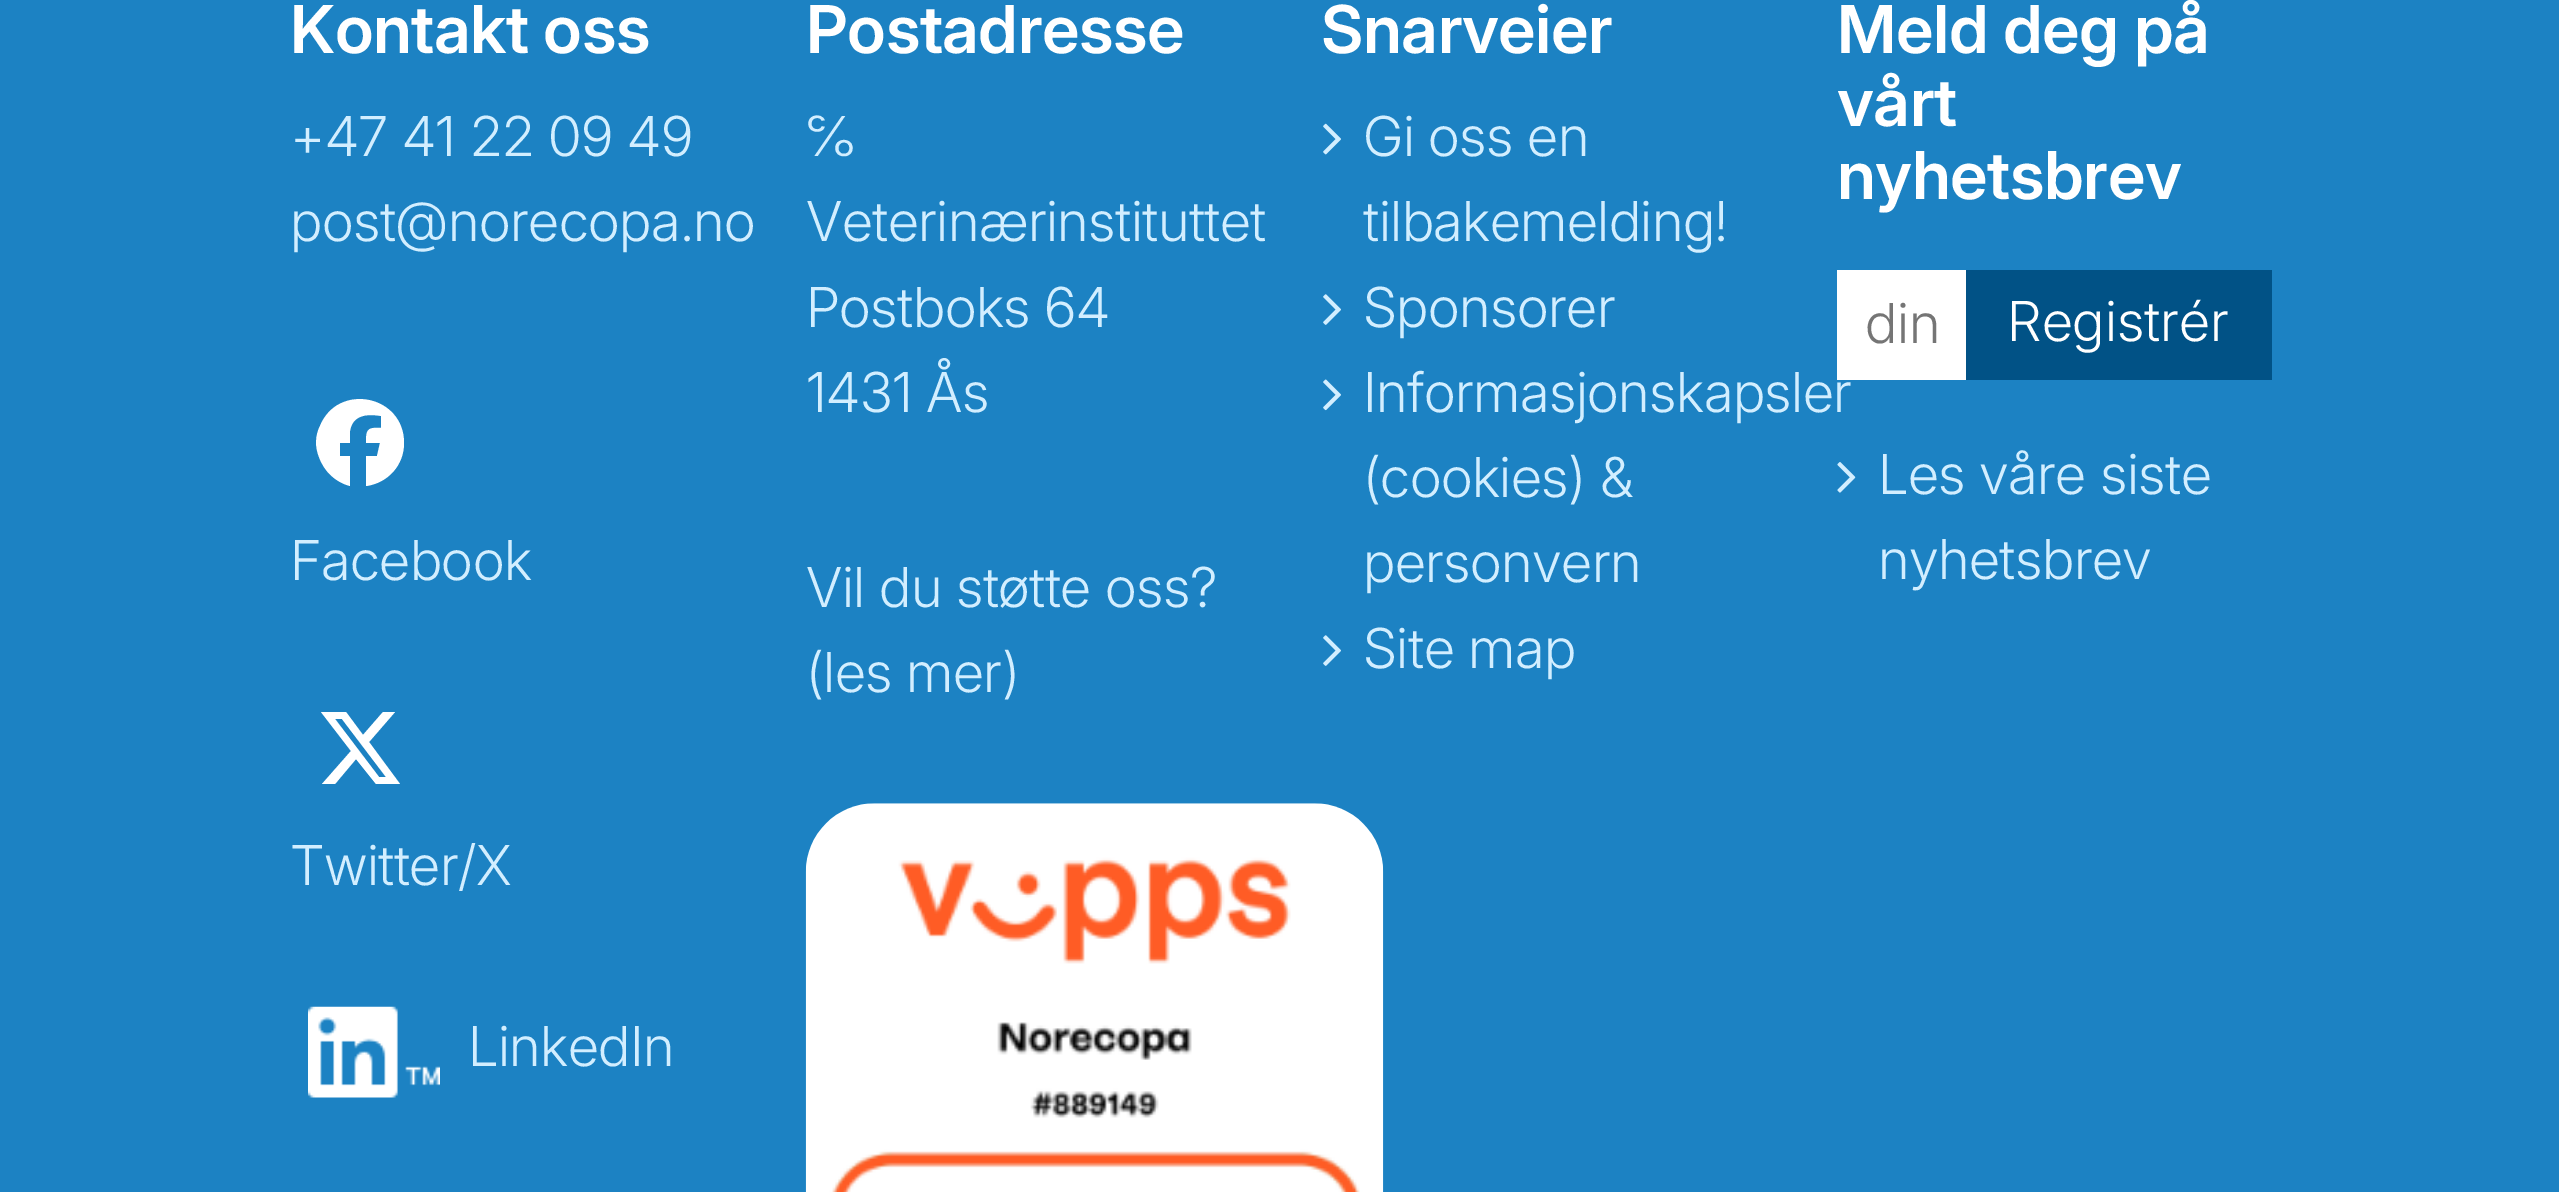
%!PS-Adobe-3.0
%%BoundingBox: 0 0 2559 1192
%%LanguageLevel: 3
%%Pages: 1
%%EndComments
%%BeginProlog
/setink { 3 { 255 div 3 1 roll } repeat setrgbcolor } def
/usefont { [ exch dup neg 0 0 3 -1 roll 0 0 ] selectfont } def
/drawtext { setink usefont moveto show } def
/fillbox { setink rectfill } def
/drawimage { 5 dict begin { /h /w /y /x /name } { exch def } forall
  gsave x y translate w h scale
  w h 8 [w 0 0 h 0 0] name (r) file false 3 colorimage grestore end } def
%%EndProlog
%%BeginSetup
<< /PageSize [2559 1192] >> setpagedevice
%%EndSetup
%%Page: 1 1
0 1192 translate 1 -1 scale
4 setmiterlimit
0 0 2559 1192 28 130 195 fillbox
/Inter-SemiBold 66 usefont
255 255 255 setink
290 53 moveto -0.55 0 (Kontakt oss) ashow
/Inter-Light 55 usefont
210 238 255 setink
290 156 moveto -0.55 0 (+47 41 22 09 49) ashow
290 241 moveto -0.55 0 (post@norecopa.no) ashow
255 255 255 setink
404 443 moveto 404 395 338 382 320 426 curveto 315 436 315 447 319 457 curveto 324 471 335 482 350 486 curveto 350 456 lineto 340 456 lineto 340 443 lineto 350 443 lineto 350 438 349 432 351 427 curveto 355 414 370 414 381 416 curveto 381 428 lineto 367 427 366 430 366 443 curveto 380 443 lineto 377 456 lineto 366 456 lineto 366 486 lineto 388 483 404 465 404 443 curveto closepath fill
210 238 255 setink
290 580 moveto -0.55 0 (Facebook) ashow
255 255 255 setink
383 712 moveto 395 712 lineto 383 712 lineto 395 712 lineto 369 742 lineto 400 784 lineto 376 784 lineto 356 759 lineto 335 784 lineto 322 784 lineto 351 751 lineto 321 712 lineto 346 712 lineto 363 735 lineto closepath 379 777 moveto 386 777 lineto 379 777 lineto 386 777 lineto 342 719 lineto 335 719 lineto closepath fill
210 238 255 setink
290 885 moveto -0.55 0 (Twitter/X) ashow
(assets/img1.rgb) 308 1006 132 92 drawimage
468 1066 moveto -0.55 0 (LinkedIn) ashow
/Inter-SemiBold 66 usefont
255 255 255 setink
806 53 moveto -0.55 0 (Postadresse) ashow
/Inter-Light 55 usefont
210 238 255 setink
806 156 moveto -0.55 0 (℅) ashow
806 241 moveto -0.55 0 (Veterinærinstituttet) ashow
806 327 moveto -0.55 0 (Postboks 64) ashow
806 412 moveto -0.55 0 (1431 Ås) ashow
806 607 moveto -0.55 0 (Vil du støtte oss?) ashow
806 692 moveto -0.55 0 (\(les mer\)) ashow
(assets/img2.rgb) 805 803 579 389 drawimage
/Inter-SemiBold 66 usefont
255 255 255 setink
1321 53 moveto -0.55 0 (Snarveier) ashow
(assets/img3.rgb) 1323 123 18 32 drawimage
/Inter-Light 55 usefont
210 238 255 setink
1363 156 moveto -0.55 0 (Gi oss en) ashow
1363 241 moveto -0.55 0 (tilbakemelding!) ashow
(assets/img4.rgb) 1323 294 18 31 drawimage
1363 327 moveto -0.55 0 (Sponsorer) ashow
(assets/img5.rgb) 1323 379 18 32 drawimage
1363 412 moveto -0.55 0 (Informasjonskapsler) ashow
1363 497 moveto -0.55 0 (\(cookies\) &) ashow
1363 582 moveto -0.55 0 (personvern) ashow
(assets/img4.rgb) 1323 635 18 31 drawimage
1363 668 moveto -0.55 0 (Site map) ashow
/Inter-SemiBold 66 usefont
255 255 255 setink
1837 53 moveto -0.55 0 (Meld deg på) ashow
1837 126 moveto -0.55 0 (vårt) ashow
1837 199 moveto -0.55 0 (nyhetsbrev) ashow
1837 270 129 110 255 255 255 fillbox
(din) 1865 343 /Inter-Light 55 117 117 117 drawtext
1966 270 306 110 1 82 134 fillbox
(Registrér) 2007 341 /Inter-Light 55 255 255 255 drawtext
(assets/img6.rgb) 1837 462 19 31 drawimage
210 238 255 setink
1878 494 moveto -0.55 0 (Les våre siste) ashow
1878 579 moveto -0.55 0 (nyhetsbrev) ashow
showpage
%%EOF
